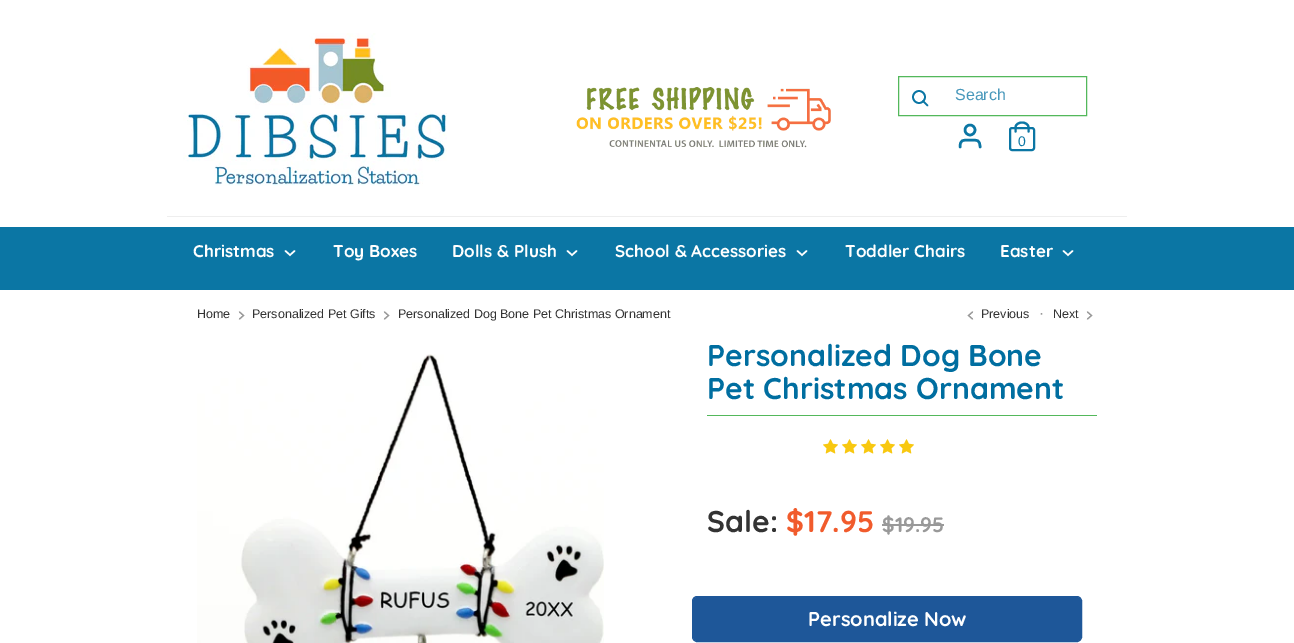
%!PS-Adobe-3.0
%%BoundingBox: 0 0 1294 643
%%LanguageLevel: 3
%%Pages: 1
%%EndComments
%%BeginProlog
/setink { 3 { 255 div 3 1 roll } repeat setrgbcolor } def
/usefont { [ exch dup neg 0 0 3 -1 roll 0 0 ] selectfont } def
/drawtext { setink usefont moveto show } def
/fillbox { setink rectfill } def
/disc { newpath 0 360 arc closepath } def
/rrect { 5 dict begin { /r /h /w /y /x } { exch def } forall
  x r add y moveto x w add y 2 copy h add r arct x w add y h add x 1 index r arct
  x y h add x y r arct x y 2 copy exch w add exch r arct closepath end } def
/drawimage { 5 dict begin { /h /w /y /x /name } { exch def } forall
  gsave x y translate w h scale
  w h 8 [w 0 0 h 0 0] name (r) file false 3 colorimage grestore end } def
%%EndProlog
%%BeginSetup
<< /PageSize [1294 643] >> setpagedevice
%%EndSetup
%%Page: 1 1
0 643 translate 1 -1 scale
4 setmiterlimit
0 0 1294 643 255 255 255 fillbox
167 216 960 1 238 238 238 fillbox
(assets/img1.rgb) 183 33 264 153 drawimage
(assets/img2.rgb) 576 87 255 61 drawimage
83 184 91 setink
898.5 76.5 188 39 rectstroke
11 118 164 setink
1.7 setlinewidth
919 97 6 disc stroke
1 setlinecap
927.5 105.5 moveto 923 101 lineto stroke
(Search) 955 100 /LiberationSans-Regular 16 72 152 187 drawtext
11 118 164 setink
2.5 setlinewidth
980 147 moveto 980 139.5 977 140 970 140 curveto 963 140 960 139.5 960 147 curveto stroke
0 setlinecap
970 130 5 disc stroke
2 setlinewidth
1010 128 24 22 2 rrect stroke
2.1 setlinewidth
1 setlinecap
1015.5 131.5 moveto 1015.5 127.5 lineto 1015.5 124.5 1018.5 122.5 1022 122.5 curveto 1025.5 122.5 1028.5 124.5 1028.5 127.5 curveto 1028.5 131.5 lineto stroke
(0) 1018 146 /LiberationSans-Regular 14 11 118 164 drawtext
0 227 1294 63 11 118 164 fillbox
(Christmas) 193 257 /Quicksand-Bold 17 255 255 255 drawtext
1.5 setlinewidth
285.5 251 moveto 290 255 lineto 294.5 251 lineto stroke
(Toy Boxes) 333 257 /Quicksand-Bold 17 255 255 255 drawtext
(Dolls & Plush) 452 257 /Quicksand-Bold 17 255 255 255 drawtext
567.5 251 moveto 572 255 lineto 576.5 251 lineto stroke
(School & Accessories) 615 257 /Quicksand-Bold 17 255 255 255 drawtext
797.5 251 moveto 802 255 lineto 806.5 251 lineto stroke
(Toddler Chairs) 845 257 /Quicksand-Bold 17 255 255 255 drawtext
(Easter) 1000 257 /Quicksand-Bold 17 255 255 255 drawtext
1063.5 251 moveto 1068 255 lineto 1072.5 251 lineto stroke
(Home) 197 318 /LiberationSans-Regular 12.5 51 51 51 drawtext
153 153 153 setink
1.2 setlinewidth
239.5 319 moveto 243.5 315.5 lineto 239.5 312 lineto stroke
(Personalized Pet Gifts) 252 318 /LiberationSans-Regular 12.5 51 51 51 drawtext
153 153 153 setink
384.5 319 moveto 388.5 315.5 lineto 384.5 312 lineto stroke
(Personalized Dog Bone Pet Christmas Ornament) 398 318 /LiberationSans-Regular 12.5 51 51 51 drawtext
153 153 153 setink
972.5 319 moveto 968.5 315.5 lineto 972.5 312 lineto stroke
(Previous) 981 318 /LiberationSans-Regular 12.5 51 51 51 drawtext
(·) 1039 318 /LiberationSans-Regular 15 153 153 153 drawtext
(Next) 1053 318 /LiberationSans-Regular 12.5 51 51 51 drawtext
153 153 153 setink
1087.5 319 moveto 1091.5 315.5 lineto 1087.5 312 lineto stroke
(assets/img3.rgb) 197 354 407 289 drawimage
707 415 390 1 83 184 91 fillbox
(Personalized Dog Bone) 707 366 /Quicksand-Bold 30 0 110 160 drawtext
(Pet Christmas Ornament) 707 399 /Quicksand-Bold 30 0 110 160 drawtext
(assets/img4.rgb) 823 439 15 15 drawimage
(assets/img4.rgb) 842 439 15 15 drawimage
(assets/img4.rgb) 861 439 15 15 drawimage
(assets/img4.rgb) 880 439 15 15 drawimage
(assets/img4.rgb) 899 439 15 15 drawimage
(Sale:) 707 532 /Quicksand-Bold 30 51 51 51 drawtext
($17.95) 786 532 /Quicksand-Bold 30 241 91 44 drawtext
($19.95) 882 532 /Quicksand-Bold 21 153 153 153 drawtext
882 524 62 2 153 153 153 fillbox
30 87 153 setink
1 setlinewidth
0 setlinecap
692.5 596.5 389 45 4.5 rrect stroke
693 597 388 44 4 rrect fill
(Personalize Now) 808 626 /Quicksand-Bold 20 255 255 255 drawtext
showpage
%%EOF
